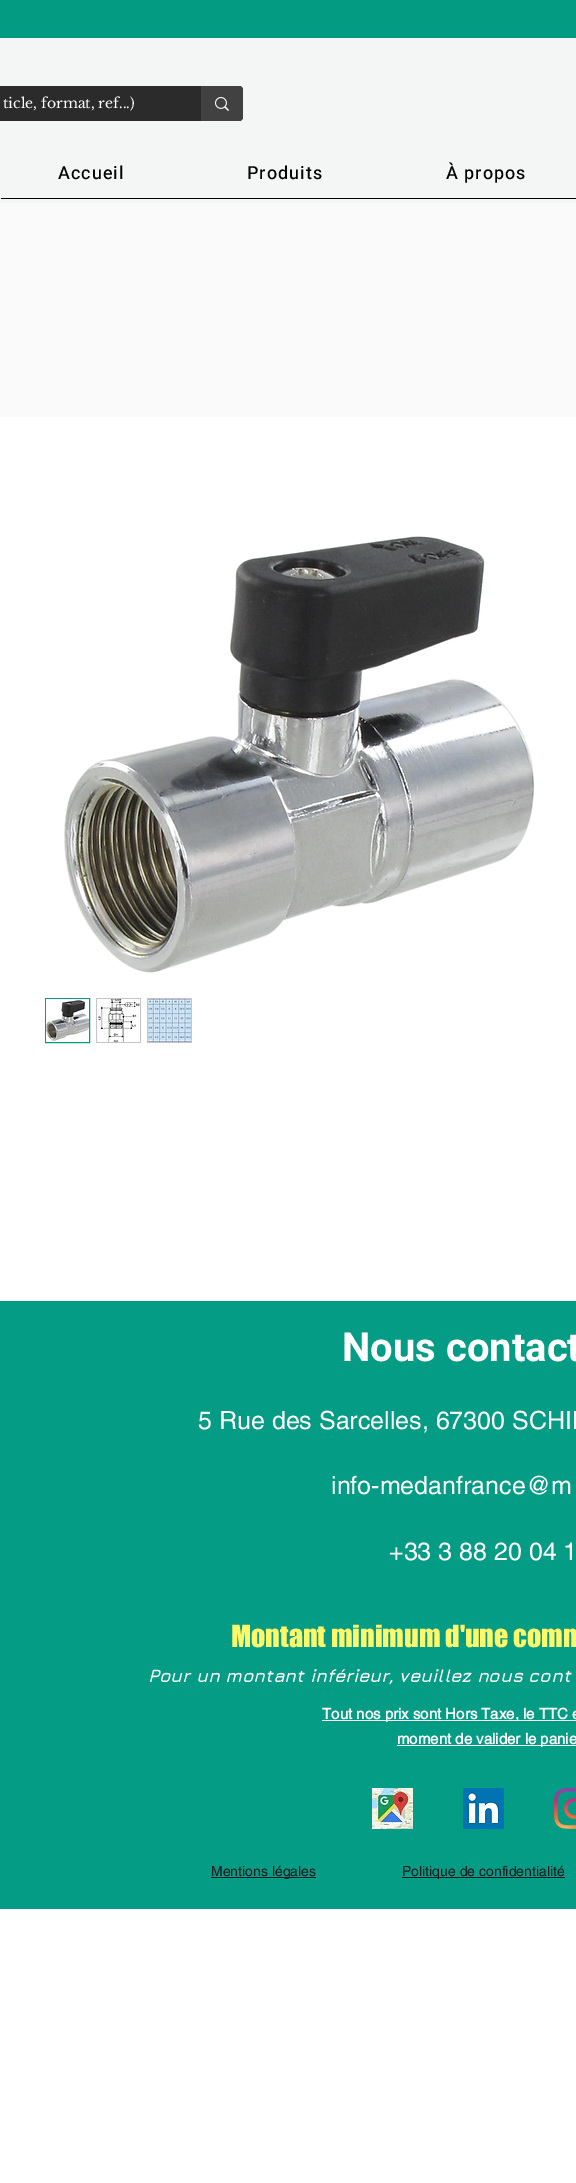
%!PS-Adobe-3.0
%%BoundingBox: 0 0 576 2183
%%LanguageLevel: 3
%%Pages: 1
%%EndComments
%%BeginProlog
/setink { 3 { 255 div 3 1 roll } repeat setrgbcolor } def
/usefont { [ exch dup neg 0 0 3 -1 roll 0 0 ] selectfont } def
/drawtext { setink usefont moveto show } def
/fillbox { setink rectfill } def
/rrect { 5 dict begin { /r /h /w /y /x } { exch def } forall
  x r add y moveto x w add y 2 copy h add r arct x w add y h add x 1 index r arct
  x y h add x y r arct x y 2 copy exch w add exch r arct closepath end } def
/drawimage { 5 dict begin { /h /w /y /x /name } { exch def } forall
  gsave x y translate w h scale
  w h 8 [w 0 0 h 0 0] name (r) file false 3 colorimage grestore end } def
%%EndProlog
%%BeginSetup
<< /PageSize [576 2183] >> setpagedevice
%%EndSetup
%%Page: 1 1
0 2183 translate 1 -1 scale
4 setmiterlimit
0 0 576 2183 255 255 255 fillbox
0 38 576 165 244 246 246 fillbox
0 0 576 38 4 155 131 fillbox
43 43 43 setink
-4 86 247 35 4 rrect fill
(ticle, format, ref...\)) 3 108 /LibreBaskerville-Regular 14 255 255 255 drawtext
65 65 65 setink
201 86 moveto 239 86 lineto 241 86 243 88 243 90 curveto 243 117 lineto 243 119 241 121 239 121 curveto 201 121 lineto closepath fill
(assets/img1.rgb) 215 97 14 14 drawimage
0 0 0 setink
1 198 moveto 1 199 lineto 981 199 lineto 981 150 lineto 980 150 lineto 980 198 lineto closepath fill
/Heebo-Medium 18 usefont
58 179 moveto 1 0 (Accueil) ashow
247 179 moveto 1 0 (Produits) ashow
446 179 moveto 1 0 (À propos) ashow
0 203 576 214 250 250 250 fillbox
(assets/img2.rgb) 64 536 470 437 drawimage
4 156 132 setink
45.5 998.5 44 44 rectstroke
(assets/img3.rgb) 46 999 43 43 drawimage
96 998 45 45 203 193 203 fillbox
(assets/img4.rgb) 97 999 43 43 drawimage
147 998 45 45 203 193 203 fillbox
(assets/img5.rgb) 148 999 43 43 drawimage
0 1301 576 608 4 156 132 fillbox
(Nous contact) 342 1361 /Roboto-Bold 40 255 255 255 drawtext
(5 Rue des Sarcelles, 67300 SCHIL) 198 1429 /helvetica-Regular 25 255 255 255 drawtext
(info-medanfrance@m) 331 1494 /helvetica-Regular 25 255 255 255 drawtext
(+33 3 88 20 04 1) 389 1560 /helvetica-Regular 25 255 255 255 drawtext
(Montant minimum d'une comm) 231 1647 /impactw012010-Regular 28 255 248 107 drawtext
(Pour un montant inférieur, veuillez nous cont) 148 1682 /Jura-BoldItalic 18 255 255 255 drawtext
322 1720 254 1 255 255 255 fillbox
(Tout nos prix sont Hors Taxe, le TTC e) 322 1719 /helvetica-Bold 15 255 255 255 drawtext
397 1745 179 1 255 255 255 fillbox
(moment de valider le panie) 397 1744 /helvetica-Bold 15 255 255 255 drawtext
(assets/img6.rgb) 372 1788 41 41 drawimage
(assets/img7.rgb) 463 1788 41 41 drawimage
(assets/img8.rgb) 554 1788 22 41 drawimage
211 1877 105 1 31 26 31 fillbox
(Mentions légales) 211 1876 /helvetica-Regular 14 31 26 31 drawtext
402 1877 163 1 31 26 31 fillbox
(Politique de confidentialité) 402 1876 /helvetica-Regular 14 31 26 31 drawtext
showpage
%%EOF
